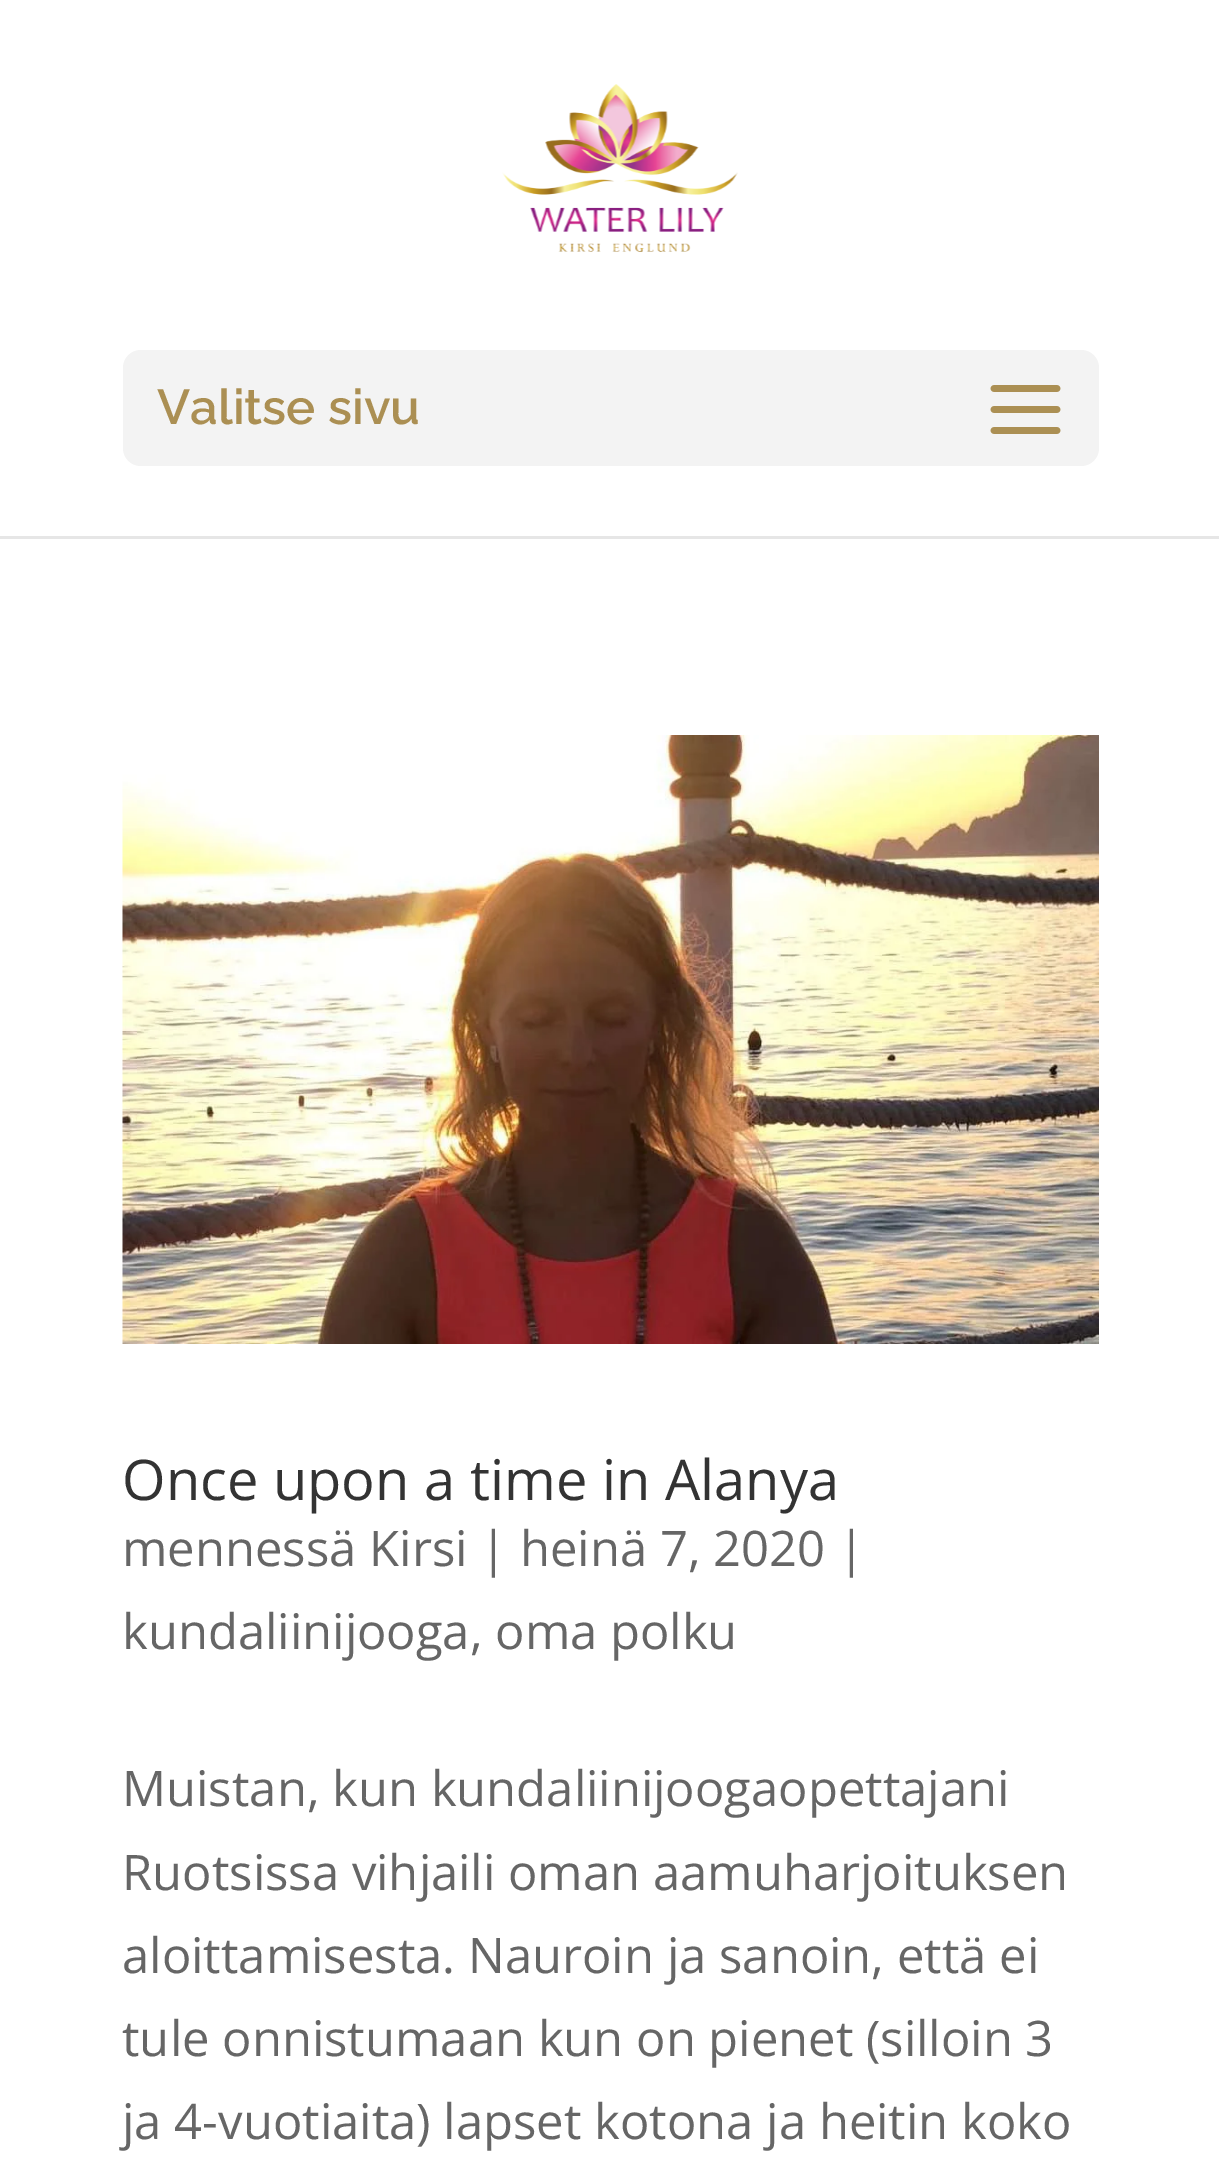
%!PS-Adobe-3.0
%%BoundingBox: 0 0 1219 2170
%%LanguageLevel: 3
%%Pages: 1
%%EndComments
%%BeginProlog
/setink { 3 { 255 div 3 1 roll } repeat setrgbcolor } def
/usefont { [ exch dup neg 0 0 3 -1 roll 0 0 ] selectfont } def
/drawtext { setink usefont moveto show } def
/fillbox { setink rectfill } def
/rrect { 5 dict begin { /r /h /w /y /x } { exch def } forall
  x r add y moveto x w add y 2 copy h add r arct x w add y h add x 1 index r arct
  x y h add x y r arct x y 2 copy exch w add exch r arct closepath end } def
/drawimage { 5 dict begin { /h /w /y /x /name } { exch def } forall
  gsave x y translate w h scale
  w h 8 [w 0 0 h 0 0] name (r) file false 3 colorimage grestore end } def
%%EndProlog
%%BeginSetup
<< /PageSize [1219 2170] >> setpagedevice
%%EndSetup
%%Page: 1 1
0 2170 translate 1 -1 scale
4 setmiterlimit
0 0 1219 2170 255 255 255 fillbox
230 230 230 setink
0 536 moveto 0 539 lineto 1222 539 lineto 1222 4 lineto 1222 536 lineto closepath fill
(assets/img1.rgb) 502 84 236 168 drawimage
243 243 243 setink
123 350 976 116 18 rrect fill
(Valitse sivu) 157 424 /Raleway-SemiBold 49 171 143 83 drawtext
(assets/img2.rgb) 990 385 71 49 drawimage
(assets/img3.rgb) 122 735 977 609 drawimage
(Once upon a time in Alanya) 122 1500 /OpenSans-Regular 56 51 51 51 drawtext
(mennessä Kirsi | heinä 7, 2020 |) 122 1566 /OpenSans-Regular 49 102 102 102 drawtext
(kundaliinijooga, oma polku) 122 1649 /OpenSans-Regular 49 102 102 102 drawtext
(Muistan, kun kundaliinijoogaopettajani) 122 1806 /OpenSans-Regular 49 102 102 102 drawtext
(Ruotsissa vihjaili oman aamuharjoituksen) 122 1890 /OpenSans-Regular 49 102 102 102 drawtext
(aloittamisesta. Nauroin ja sanoin, että ei) 122 1973 /OpenSans-Regular 49 102 102 102 drawtext
(tule onnistumaan kun on pienet \(silloin 3) 122 2056 /OpenSans-Regular 49 102 102 102 drawtext
(ja 4-vuotiaita\) lapset kotona ja heitin koko) 122 2139 /OpenSans-Regular 49 102 102 102 drawtext
showpage
%%EOF
